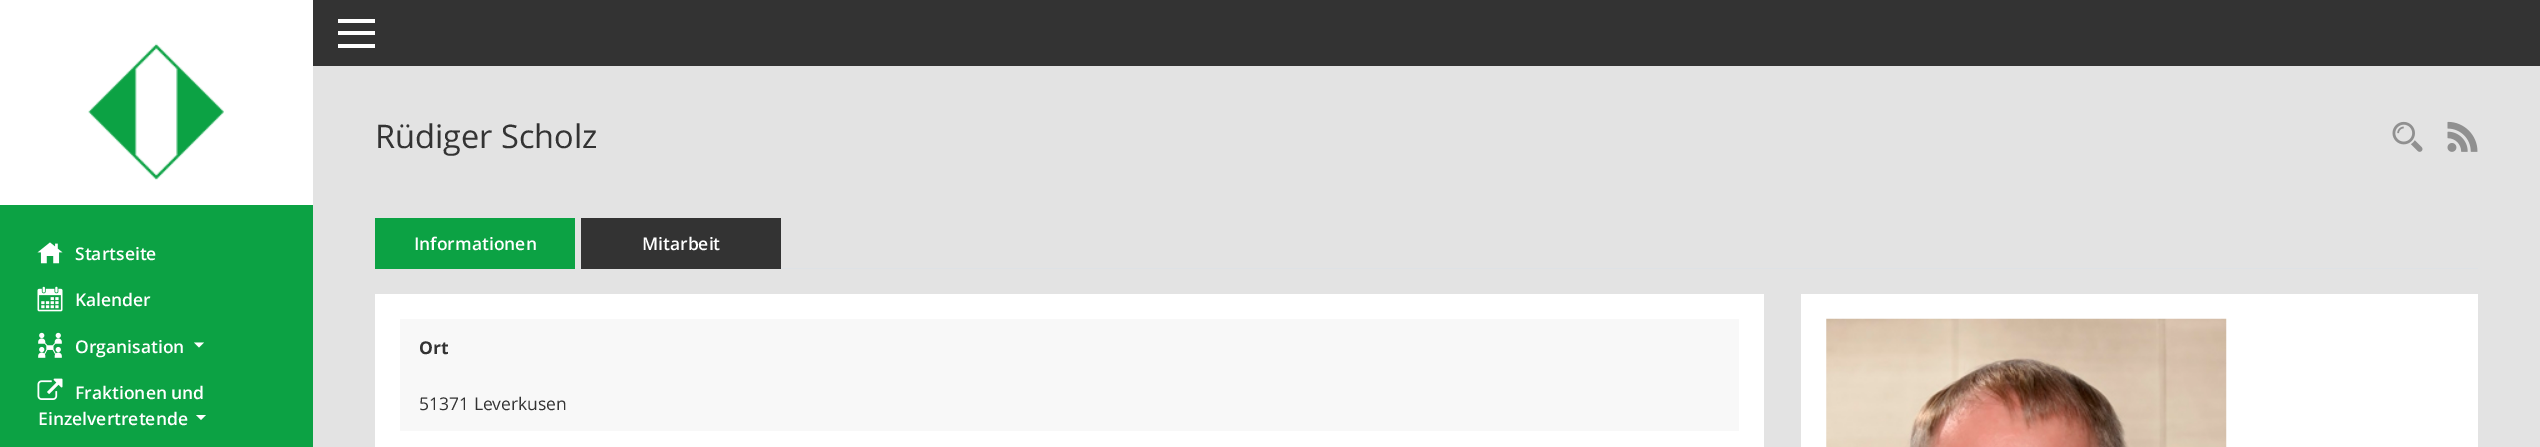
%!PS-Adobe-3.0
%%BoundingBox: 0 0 2540 447
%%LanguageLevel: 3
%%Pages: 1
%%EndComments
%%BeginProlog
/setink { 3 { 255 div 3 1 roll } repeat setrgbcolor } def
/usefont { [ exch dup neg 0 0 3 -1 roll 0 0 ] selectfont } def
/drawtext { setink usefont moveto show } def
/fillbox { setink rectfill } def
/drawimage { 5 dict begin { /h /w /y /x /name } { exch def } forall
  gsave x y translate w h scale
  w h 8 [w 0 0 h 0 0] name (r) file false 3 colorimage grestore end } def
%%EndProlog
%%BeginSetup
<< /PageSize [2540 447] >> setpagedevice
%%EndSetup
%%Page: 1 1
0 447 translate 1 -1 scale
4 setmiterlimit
0 0 2540 447 227 227 227 fillbox
0 205 313 242 12 162 68 fillbox
0 0 313 205 255 255 255 fillbox
(assets/img1.rgb) 88 43 136 137 drawimage
(assets/img2.rgb) 37 242 26 22 drawimage
(Startseite) 75 260 /OpenSans-SemiBold 17.5 255 255 255 drawtext
(assets/img3.rgb) 37 286 26 26 drawimage
(Kalender) 75 306 /OpenSans-SemiBold 17.5 255 255 255 drawtext
(assets/img4.rgb) 38 332 24 26 drawimage
(Organisation) 75 353 /OpenSans-SemiBold 17.5 255 255 255 drawtext
194 342.5 moveto 204 342.5 lineto 199 347.5 lineto closepath fill
(assets/img5.rgb) 37 378 26 22 drawimage
(Fraktionen und) 75 399 /OpenSans-SemiBold 17.5 255 255 255 drawtext
(Einzelvertretende) 38 425 /OpenSans-SemiBold 17.5 255 255 255 drawtext
196 415 moveto 206 415 lineto 201 420 lineto closepath fill
313 0 2227 66 51 51 51 fillbox
338 19 37 4 255 255 255 fillbox
338 31 37 4 255 255 255 fillbox
338 44 37 4 255 255 255 fillbox
(Rüdiger Scholz) 375 148 /OpenSans-Regular 32.5 51 51 51 drawtext
(assets/img6.rgb) 2392 121 31 31 drawimage
(assets/img7.rgb) 2447 121 31 31 drawimage
575 268 1903 1 222 226 230 fillbox
375 218 200 51 12 162 68 fillbox
(Informationen) 414 250 /OpenSans-SemiBold 17.5 255 255 255 drawtext
581 218 200 51 51 51 51 fillbox
(Mitarbeit) 642 250 /OpenSans-SemiBold 17.5 255 255 255 drawtext
375 294 1389 153 255 255 255 fillbox
400 319 1339 112 248 248 248 fillbox
(Ort) 419 354 /OpenSans-Bold 17.5 51 51 51 drawtext
(51371 Leverkusen) 419 410 /OpenSans-Regular 17.5 51 51 51 drawtext
1801 294 677 153 255 255 255 fillbox
(assets/img8.rgb) 1826 318 401 129 drawimage
showpage
%%EOF
